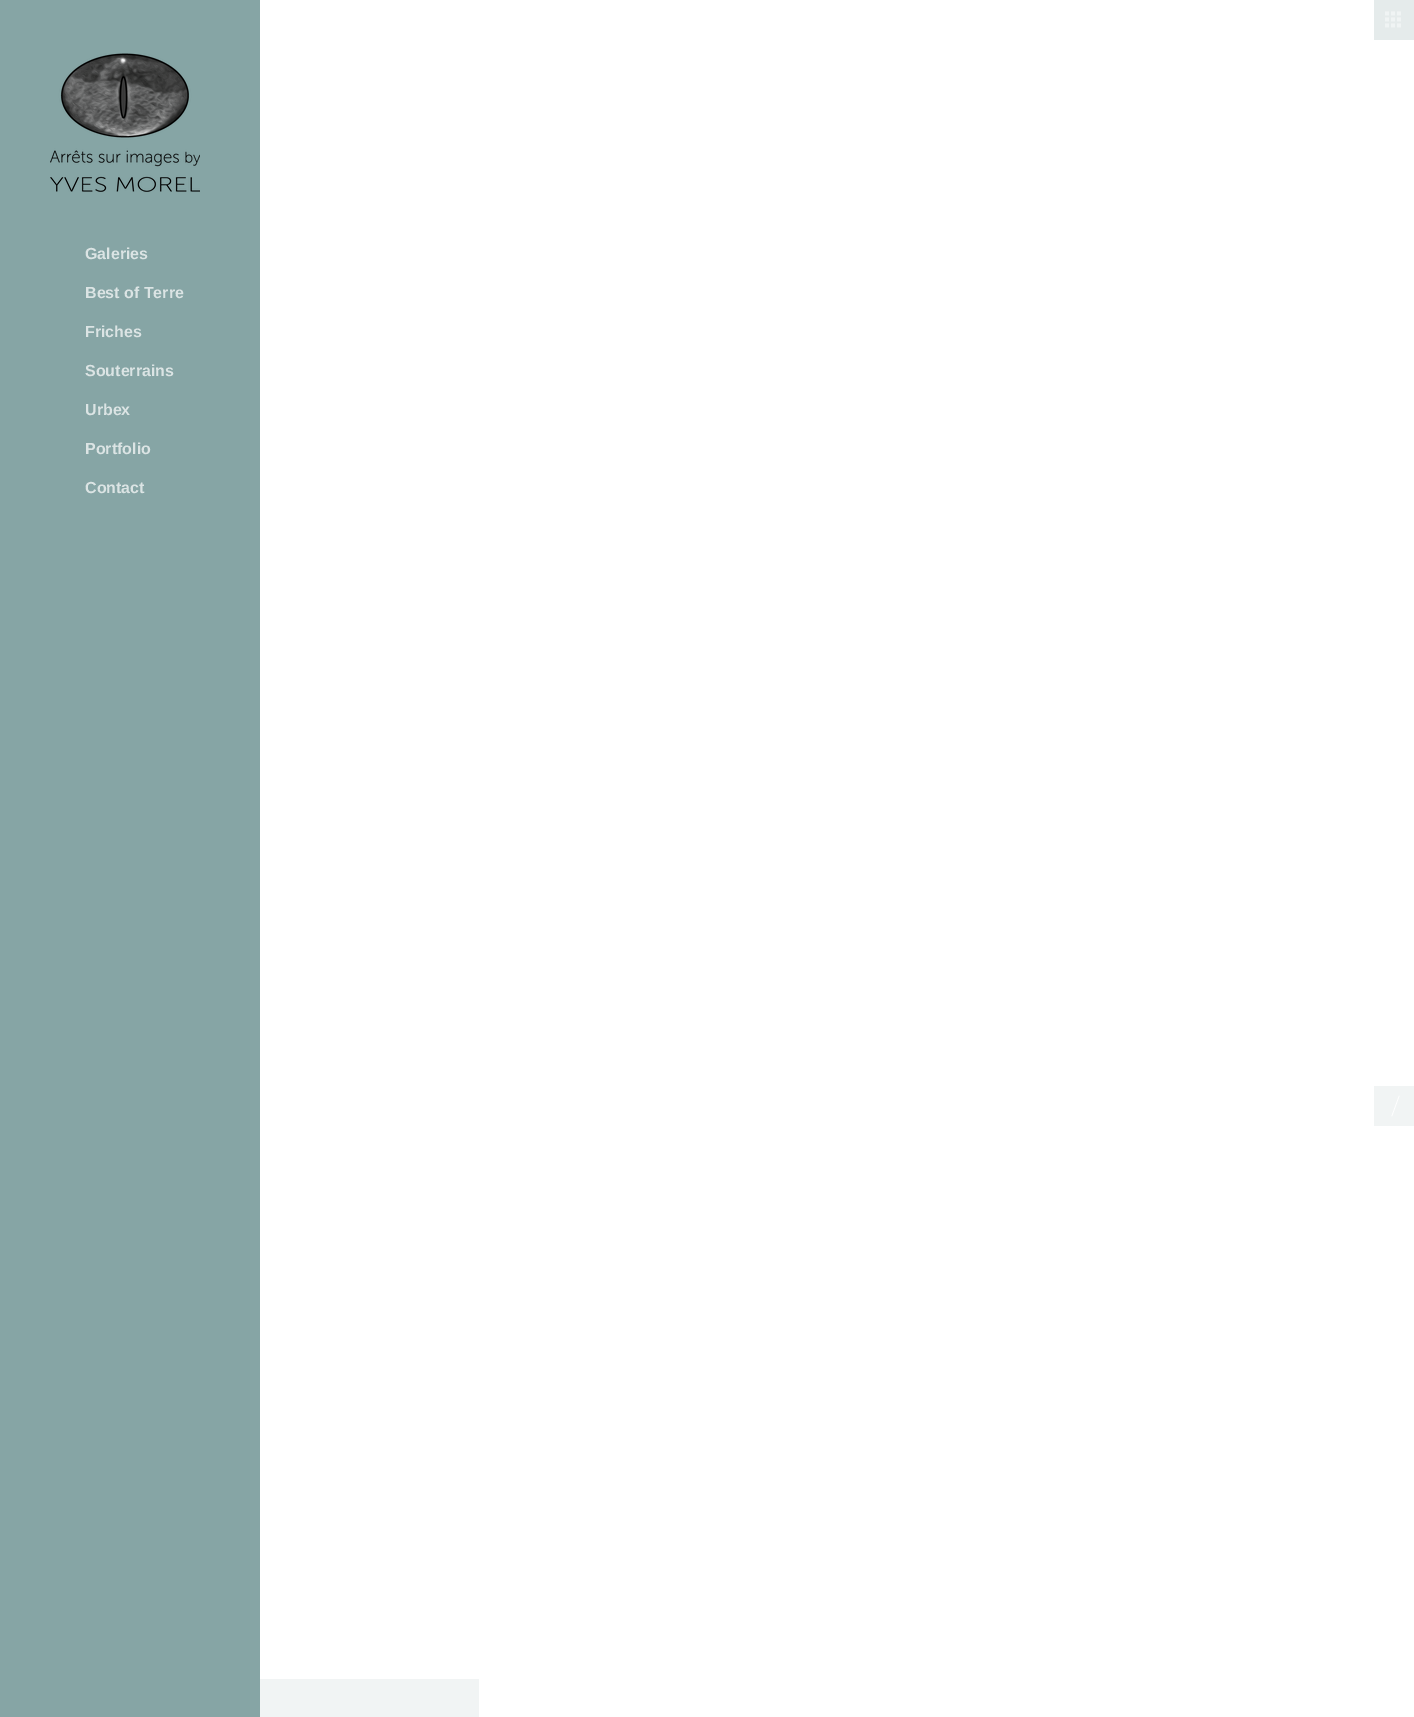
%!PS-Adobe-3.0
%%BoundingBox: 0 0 1414 1717
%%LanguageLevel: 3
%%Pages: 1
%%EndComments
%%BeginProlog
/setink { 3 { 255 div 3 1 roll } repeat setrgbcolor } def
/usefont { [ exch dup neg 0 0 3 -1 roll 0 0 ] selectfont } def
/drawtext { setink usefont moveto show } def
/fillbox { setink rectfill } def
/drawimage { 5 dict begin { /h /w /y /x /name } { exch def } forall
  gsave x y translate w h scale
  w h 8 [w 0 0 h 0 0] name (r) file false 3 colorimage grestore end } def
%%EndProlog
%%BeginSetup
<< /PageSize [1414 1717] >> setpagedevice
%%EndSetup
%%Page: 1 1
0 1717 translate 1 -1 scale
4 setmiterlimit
0 0 1414 1717 255 255 255 fillbox
0 0 260 1717 134 165 165 fillbox
(assets/img1.rgb) 50 53 150 139 drawimage
(Galeries) 85 259 /LiberationSans-Bold 16 219 228 228 drawtext
(Best of Terre) 85 298 /LiberationSans-Bold 16 219 228 228 drawtext
(Friches) 85 337 /LiberationSans-Bold 16 219 228 228 drawtext
(Souterrains) 85 376 /LiberationSans-Bold 16 219 228 228 drawtext
(Urbex) 85 415 /LiberationSans-Bold 16 219 228 228 drawtext
(Portfolio) 85 454 /LiberationSans-Bold 16 219 228 228 drawtext
(Contact) 85 493 /LiberationSans-Bold 16 219 228 228 drawtext
1374 0 40 40 229 235 235 fillbox
(assets/img2.rgb) 1385 11 16 17 drawimage
1374 1086 40 40 241 244 244 fillbox
255 255 255 setink
1399 1095.5 moveto 1399.5 1096 lineto 1392 1116.5 lineto 1391.5 1116 lineto closepath fill
260 1679 219 38 241 244 244 fillbox
showpage
%%EOF
